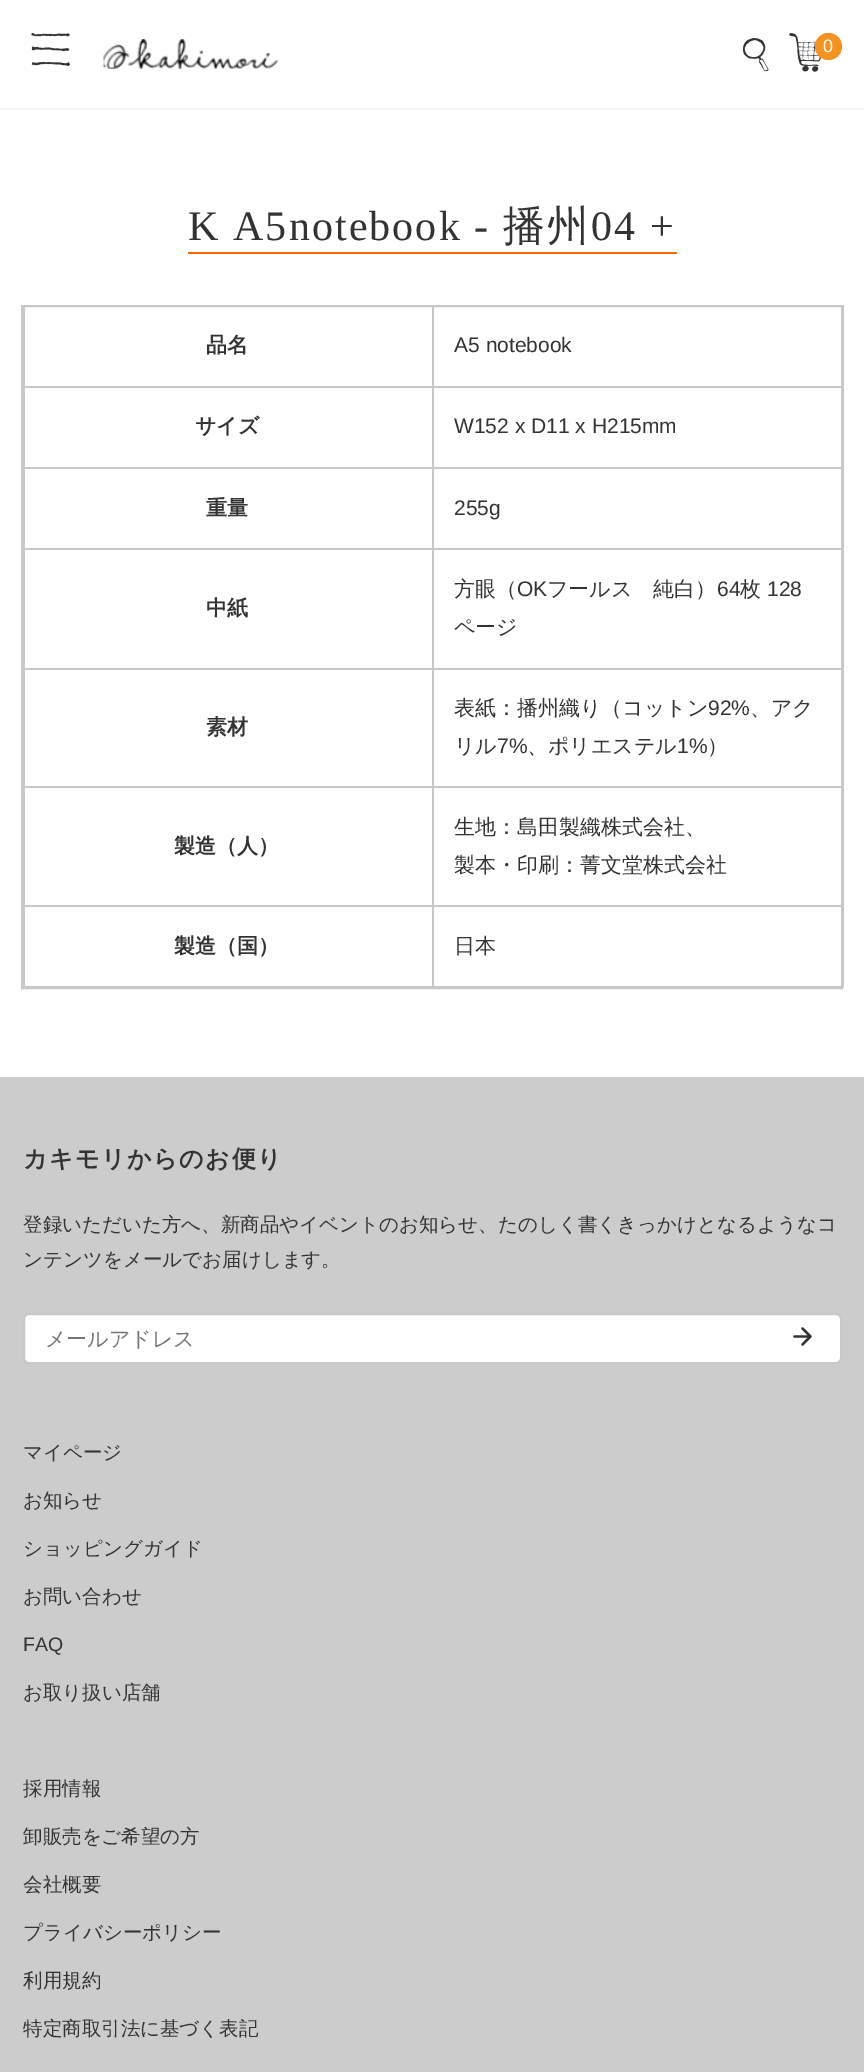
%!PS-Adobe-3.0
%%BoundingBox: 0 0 864 2072
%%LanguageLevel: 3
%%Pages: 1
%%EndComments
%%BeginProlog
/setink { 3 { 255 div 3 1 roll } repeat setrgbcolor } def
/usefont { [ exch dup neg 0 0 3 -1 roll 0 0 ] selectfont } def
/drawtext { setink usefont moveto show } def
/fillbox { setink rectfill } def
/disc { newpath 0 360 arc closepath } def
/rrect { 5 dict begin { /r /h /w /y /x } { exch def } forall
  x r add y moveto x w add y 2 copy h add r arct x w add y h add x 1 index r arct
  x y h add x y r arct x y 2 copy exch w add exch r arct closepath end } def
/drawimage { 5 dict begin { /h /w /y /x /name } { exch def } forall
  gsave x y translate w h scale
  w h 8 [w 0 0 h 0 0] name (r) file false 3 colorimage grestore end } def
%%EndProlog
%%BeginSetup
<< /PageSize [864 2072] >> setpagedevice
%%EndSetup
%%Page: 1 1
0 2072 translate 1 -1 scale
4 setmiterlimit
0 0 864 2072 255 255 255 fillbox
0 108 864 2 244 244 244 fillbox
(assets/img1.rgb) 31 32 39 34 drawimage
(assets/img2.rgb) 103 39 175 30 drawimage
(assets/img3.rgb) 742 38 27 34 drawimage
(assets/img4.rgb) 789 33 32 39 drawimage
246 146 30 setink
828.5 46.5 13.5 disc fill
(0) 823 52 /LiberationSans-Regular 18 255 255 255 drawtext
/LiberationSerif-Regular 42 usefont
51 51 51 setink
188 240 moveto 2.1 0 (K A5notebook -) ashow
/WenQuanYiZenHei-Medium 42 usefont
503 240 moveto 2.1 0 (播州) ashow
/LiberationSerif-Regular 42 usefont
591 240 moveto 2.1 0 (04 +) ashow
188 252 489 2 255 104 0 fillbox
200 200 200 setink
2 setlinewidth
22 306 820 682 rectstroke
(品名) 206 352 /WenQuanYiZenHei-Bold 21 51 51 51 drawtext
432 386 411 2 200 200 200 fillbox
432 467 411 2 200 200 200 fillbox
432 548 411 2 200 200 200 fillbox
432 668 411 2 200 200 200 fillbox
432 786 411 2 200 200 200 fillbox
432 905 411 2 200 200 200 fillbox
432 986 411 1 200 200 200 fillbox
432 905 2 82 200 200 200 fillbox
23 905 411 2 200 200 200 fillbox
432 786 2 120 200 200 200 fillbox
23 786 411 2 200 200 200 fillbox
432 668 2 120 200 200 200 fillbox
23 668 411 2 200 200 200 fillbox
432 548 2 121 200 200 200 fillbox
23 548 411 2 200 200 200 fillbox
432 467 2 82 200 200 200 fillbox
23 467 411 2 200 200 200 fillbox
432 386 2 82 200 200 200 fillbox
23 386 411 2 200 200 200 fillbox
432 305 2 82 200 200 200 fillbox
(A5 notebook) 454 352 /LiberationSans-Regular 21 51 51 51 drawtext
23 986 411 1 200 200 200 fillbox
23 905 2 82 200 200 200 fillbox
23 786 2 120 200 200 200 fillbox
23 668 2 120 200 200 200 fillbox
23 548 2 121 200 200 200 fillbox
23 467 2 82 200 200 200 fillbox
23 305 2 163 200 200 200 fillbox
(サイズ) 195 433 /WenQuanYiZenHei-Bold 21 51 51 51 drawtext
(W152 x D11 x H215mm) 454 433 /LiberationSans-Regular 21 51 51 51 drawtext
(重量) 206 515 /WenQuanYiZenHei-Bold 21 51 51 51 drawtext
(255g) 454 515 /LiberationSans-Regular 21 51 51 51 drawtext
(中紙) 206 615 /WenQuanYiZenHei-Bold 21 51 51 51 drawtext
(方眼（) 454 596 /WenQuanYiZenHei-Medium 21 51 51 51 drawtext
(OK) 517 596 /LiberationSans-Regular 21 51 51 51 drawtext
(フールス　純白）) 547 596 /WenQuanYiZenHei-Medium 21 51 51 51 drawtext
(64) 717 596 /LiberationSans-Regular 21 51 51 51 drawtext
(枚) 740 596 /WenQuanYiZenHei-Medium 21 51 51 51 drawtext
(128) 767 596 /LiberationSans-Regular 21 51 51 51 drawtext
(ページ) 454 634 /WenQuanYiZenHei-Medium 21 51 51 51 drawtext
(素材) 206 734 /WenQuanYiZenHei-Bold 21 51 51 51 drawtext
(表紙：播州織り（コットン) 454 715 /WenQuanYiZenHei-Medium 21 51 51 51 drawtext
(92%) 708 715 /LiberationSans-Regular 21 51 51 51 drawtext
(、アク) 750 715 /WenQuanYiZenHei-Medium 21 51 51 51 drawtext
(リル) 454 753 /WenQuanYiZenHei-Medium 21 51 51 51 drawtext
(7%) 497 753 /LiberationSans-Regular 21 51 51 51 drawtext
(、ポリエステル) 527 753 /WenQuanYiZenHei-Medium 21 51 51 51 drawtext
(1%) 677 753 /LiberationSans-Regular 21 51 51 51 drawtext
(）) 707 753 /WenQuanYiZenHei-Medium 21 51 51 51 drawtext
(製造（人）) 174 853 /WenQuanYiZenHei-Bold 21 51 51 51 drawtext
(生地：島田製織株式会社、) 454 834 /WenQuanYiZenHei-Medium 21 51 51 51 drawtext
(製本・印刷：菁文堂株式会社) 454 872 /WenQuanYiZenHei-Medium 21 51 51 51 drawtext
(製造（国）) 174 953 /WenQuanYiZenHei-Bold 21 51 51 51 drawtext
843 305 1 682 200 200 200 fillbox
(日本) 454 953 /WenQuanYiZenHei-Medium 21 51 51 51 drawtext
0 1077 864 995 204 204 204 fillbox
/WenQuanYiZenHei-Bold 24 usefont
51 51 51 setink
23 1167 moveto 1.5 0 (カキモリからのお便り) ashow
(登録いただいた方へ、新商品やイベントのお知らせ、たのしく書くきっかけとなるようなコ) 23 1231 /WenQuanYiZenHei-Medium 19.5 51 51 51 drawtext
(ンテンツをメールでお届けします。) 23 1266 /WenQuanYiZenHei-Medium 19.5 51 51 51 drawtext
255 255 255 setink
24 1314 817 49 5 rrect gsave fill grestore
200 200 200 setink
stroke
(メールアドレス) 45 1346 /WenQuanYiZenHei-Medium 21 117 117 117 drawtext
51 51 51 setink
2.2 setlinewidth
1 setlinecap
1 setlinejoin
794.5 1336.5 moveto 810.5 1336.5 lineto 802.5 1328.5 moveto 810.5 1336.5 lineto 802.5 1344.5 lineto stroke
(マイページ) 23 1459 /WenQuanYiZenHei-Medium 19.5 51 51 51 drawtext
(お知らせ) 23 1507 /WenQuanYiZenHei-Medium 19.5 51 51 51 drawtext
(ショッピングガイド) 23 1555 /WenQuanYiZenHei-Medium 19.5 51 51 51 drawtext
(お問い合わせ) 23 1603 /WenQuanYiZenHei-Medium 19.5 51 51 51 drawtext
(FAQ) 23 1651 /LiberationSans-Regular 19.5 51 51 51 drawtext
(お取り扱い店舗) 23 1699 /WenQuanYiZenHei-Medium 19.5 51 51 51 drawtext
(採用情報) 23 1795 /WenQuanYiZenHei-Medium 19.5 51 51 51 drawtext
(卸販売をご希望の方) 23 1843 /WenQuanYiZenHei-Medium 19.5 51 51 51 drawtext
(会社概要) 23 1891 /WenQuanYiZenHei-Medium 19.5 51 51 51 drawtext
(プライバシーポリシー) 23 1939 /WenQuanYiZenHei-Medium 19.5 51 51 51 drawtext
(利用規約) 23 1987 /WenQuanYiZenHei-Medium 19.5 51 51 51 drawtext
(特定商取引法に基づく表記) 23 2035 /WenQuanYiZenHei-Medium 19.5 51 51 51 drawtext
showpage
%%EOF
